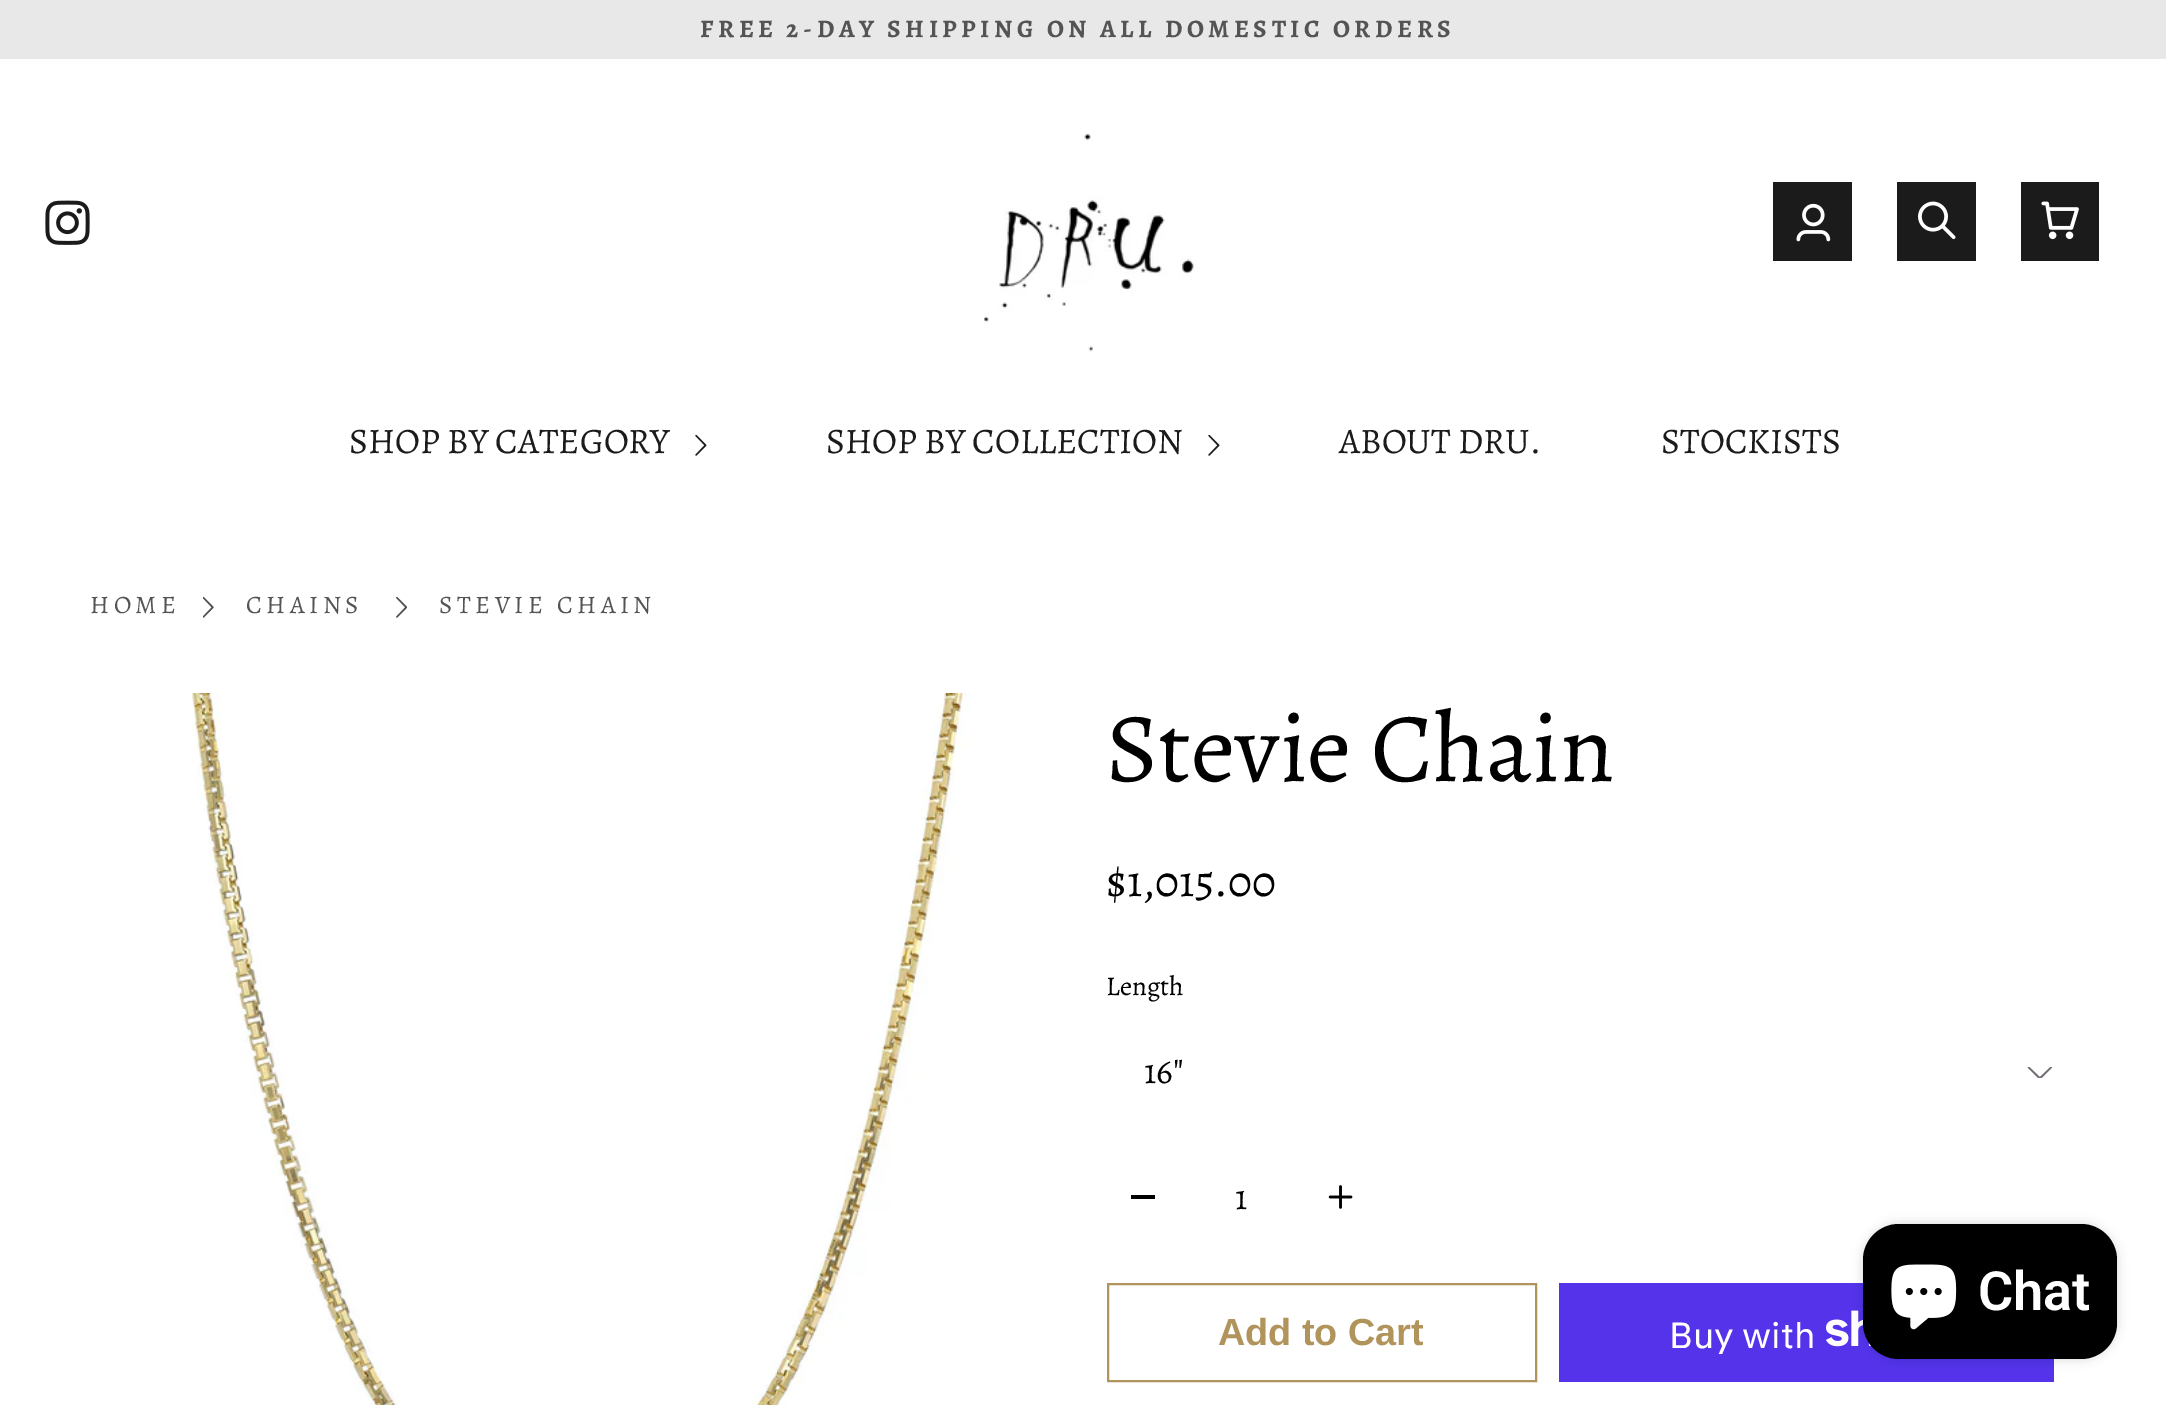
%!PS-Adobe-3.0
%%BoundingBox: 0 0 2166 1405
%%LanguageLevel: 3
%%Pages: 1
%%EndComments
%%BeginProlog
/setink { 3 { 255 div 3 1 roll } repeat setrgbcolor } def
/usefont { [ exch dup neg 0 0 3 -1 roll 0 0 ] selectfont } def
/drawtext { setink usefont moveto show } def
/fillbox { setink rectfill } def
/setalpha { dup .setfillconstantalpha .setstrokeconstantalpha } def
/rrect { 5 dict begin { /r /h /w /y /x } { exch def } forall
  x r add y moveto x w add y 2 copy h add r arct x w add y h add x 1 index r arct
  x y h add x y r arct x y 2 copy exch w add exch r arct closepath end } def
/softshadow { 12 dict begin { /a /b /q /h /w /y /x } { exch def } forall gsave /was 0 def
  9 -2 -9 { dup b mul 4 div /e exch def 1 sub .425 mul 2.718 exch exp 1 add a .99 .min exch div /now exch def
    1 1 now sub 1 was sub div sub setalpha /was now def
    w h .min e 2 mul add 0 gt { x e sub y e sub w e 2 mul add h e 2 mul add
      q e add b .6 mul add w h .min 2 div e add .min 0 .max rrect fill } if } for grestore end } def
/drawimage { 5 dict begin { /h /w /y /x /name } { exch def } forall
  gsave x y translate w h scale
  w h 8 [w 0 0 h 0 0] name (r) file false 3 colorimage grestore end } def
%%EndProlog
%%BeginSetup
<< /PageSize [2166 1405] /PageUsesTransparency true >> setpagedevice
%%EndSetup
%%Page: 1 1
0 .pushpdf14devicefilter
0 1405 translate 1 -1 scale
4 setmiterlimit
0 0 2166 1405 255 255 255 fillbox
0 0 2166 59 232 232 232 fillbox
/Alegreya-Bold 25.2 usefont
84 84 84 setink
700 37 moveto 4.5 0 (FREE 2-DAY SHIPPING ON ALL DOMESTIC ORDERS) ashow
(assets/img1.rgb) 45 200 45 45 drawimage
(assets/img2.rgb) 984 132 213 220 drawimage
1773 182 79 79 28 27 27 fillbox
(assets/img3.rgb) 1796 203 35 39 drawimage
1897 182 79 79 28 27 27 fillbox
(assets/img4.rgb) 1918 201 38 39 drawimage
2021 182 78 79 28 27 27 fillbox
(assets/img5.rgb) 2041 201 38 39 drawimage
(SHOP BY CATEGORY) 349 453 /Alegreya-Regular 36 28 27 27 drawtext
(assets/img6.rgb) 695 434 12 22 drawimage
(SHOP BY COLLECTION) 826 453 /Alegreya-Regular 36 28 27 27 drawtext
(assets/img6.rgb) 1208 434 12 22 drawimage
(ABOUT DRU.) 1339 453 /Alegreya-Regular 36 28 27 27 drawtext
(STOCKISTS) 1661 453 /Alegreya-Regular 36 28 27 27 drawtext
/Alegreya-Regular 25.2 usefont
84 84 84 setink
90 613 moveto 4.5 0 (HOME) ashow
(assets/img7.rgb) 203 596 11 22 drawimage
246 613 moveto 4.5 0 (CHAINS) ashow
(assets/img8.rgb) 396 596 11 22 drawimage
439 613 moveto 4.5 0 (STEVIE CHAIN) ashow
(assets/img9.rgb) 191 693 780 712 drawimage
(Stevie Chain) 1106 781 /Alegreya-Regular 99 0 0 0 drawtext
($1,015.00) 1106 896 /Alegreya-Regular 45 0 0 0 drawtext
(Length) 1106 995 /Alegreya-Regular 27 0 0 0 drawtext
(assets/img10.rgb) 2027 1067 25 11 drawimage
(16") 1144 1083 /Alegreya-Regular 36 0 0 0 drawtext
1131 1195 24 4 0 0 0 fillbox
(1) 1235 1209 /Alegreya-Regular 36 0 0 0 drawtext
(assets/img11.rgb) 1328 1185 25 24 drawimage
177 148 92 setink
2 setlinewidth
1108 1284 428 97 rectstroke
(Add to Cart) 1218 1345 /LiberationSans-Bold 37.75 177 148 92 drawtext
1559 1283 495 99 84 51 235 fillbox
(Buy with) 1669 1348 /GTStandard-Regular 36 255 255 255 drawtext
(assets/img12.rgb) 1826 1310 46 37 drawimage
0 0 0 setink
1863 1224 254 135 36 5.5 0.15 softshadow
1863 1224 254 135 36 rrect fill
(assets/img13.rgb) 1891 1264 66 66 drawimage
(Chat) 1978 1310 /Roboto-SemiBold 54 255 255 255 drawtext
.poppdf14devicefilter showpage
%%EOF
